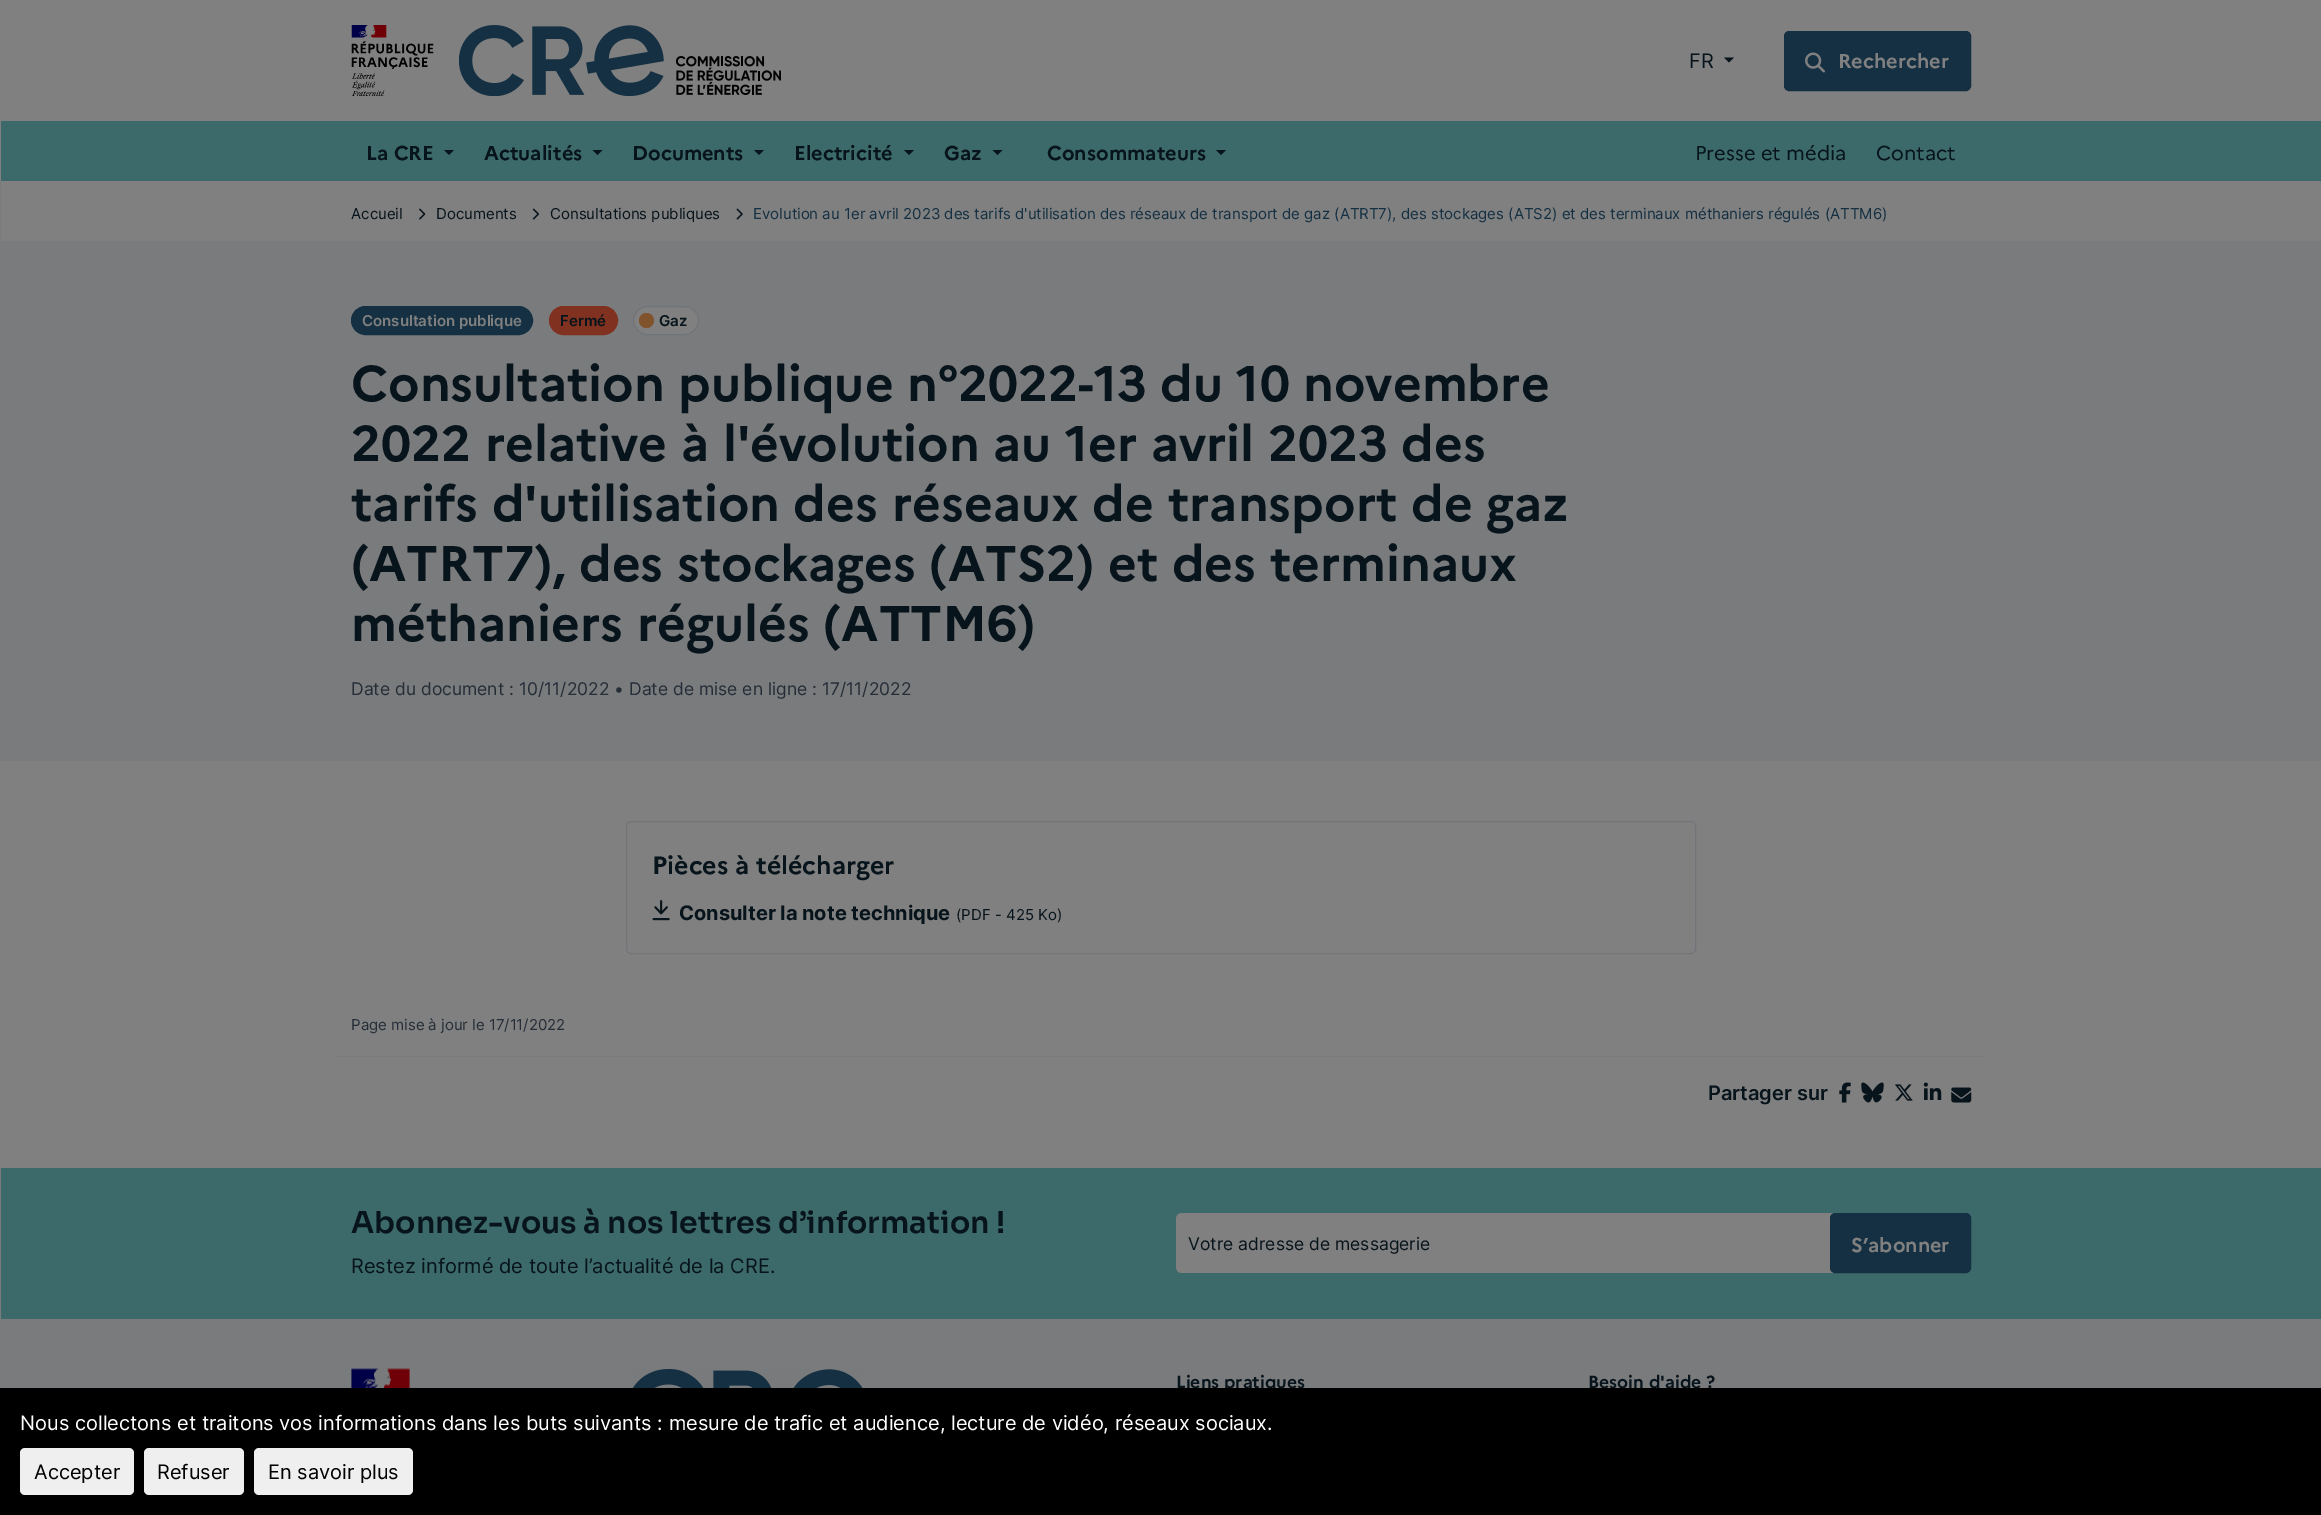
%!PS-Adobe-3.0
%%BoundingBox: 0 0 2321 1515
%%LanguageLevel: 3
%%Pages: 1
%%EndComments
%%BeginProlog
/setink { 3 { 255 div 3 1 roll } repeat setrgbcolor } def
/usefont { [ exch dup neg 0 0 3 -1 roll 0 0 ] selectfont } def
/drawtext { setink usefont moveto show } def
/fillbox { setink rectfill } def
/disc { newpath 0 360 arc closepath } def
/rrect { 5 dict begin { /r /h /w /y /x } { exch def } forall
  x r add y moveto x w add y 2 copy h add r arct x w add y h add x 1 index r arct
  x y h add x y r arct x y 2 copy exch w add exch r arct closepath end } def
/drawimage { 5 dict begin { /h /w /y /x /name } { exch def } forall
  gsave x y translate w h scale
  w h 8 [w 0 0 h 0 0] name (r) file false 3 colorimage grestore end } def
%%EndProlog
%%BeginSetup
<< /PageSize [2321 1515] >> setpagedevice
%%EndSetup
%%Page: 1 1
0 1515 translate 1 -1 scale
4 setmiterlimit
0 0 2321 1515 128 128 128 fillbox
(assets/img1.rgb) 351 25 83 71 drawimage
(assets/img2.rgb) 459 25 322 71 drawimage
(FR) 1689 68 /Inter-Regular 20 8 20 27 drawtext
1724 57.5 moveto 1734 57.5 lineto 1729 62.5 lineto closepath fill
20 48 66 setink
1784.5 31.5 186 59 4.5 rrect gsave fill grestore
stroke
(assets/img3.rgb) 1805 52 20 21 drawimage
(Rechercher) 1838 68 /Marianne-Bold 20 128 128 128 drawtext
1 121 2320 60 60 105 105 fillbox
(La CRE) 366 160 /Marianne-Bold 20 8 20 27 drawtext
444 150 moveto 454 150 lineto 449 155 lineto closepath fill
(Actualités) 484 160 /Marianne-Bold 20 8 20 27 drawtext
592.5 150 moveto 602.5 150 lineto 597.5 155 lineto closepath fill
(Documents) 632 160 /Marianne-Bold 20 8 20 27 drawtext
754 150 moveto 764 150 lineto 759 155 lineto closepath fill
(Electricité) 794 160 /Marianne-Bold 20 8 20 27 drawtext
904 150 moveto 914 150 lineto 909 155 lineto closepath fill
(Gaz) 944 160 /Marianne-Bold 20 8 20 27 drawtext
992.5 150 moveto 1002.5 150 lineto 997.5 155 lineto closepath fill
(Consommateurs) 1047 160 /Marianne-Bold 20 8 20 27 drawtext
1216 150 moveto 1226 150 lineto 1221 155 lineto closepath fill
(Presse et média) 1695 160 /Marianne-Regular 20 8 20 27 drawtext
(Contact) 1876 160 /Marianne-Regular 20 8 20 27 drawtext
0 181 2321 580 121 123 125 fillbox
1 181 2320 60 128 128 128 fillbox
(Accueil) 351 219 /Inter-Regular 15 8 20 27 drawtext
(assets/img4.rgb) 419 208 7 12 drawimage
(Documents) 436 219 /Inter-Regular 15 8 20 27 drawtext
(assets/img5.rgb) 532 208 7 12 drawimage
(Consultations publiques) 550 219 /Inter-Regular 15 8 20 27 drawtext
(assets/img6.rgb) 736 208 7 12 drawimage
(Evolution au 1er avril 2023 des tarifs d'utilisation des réseaux de transport de gaz \(ATRT7\), des stockages \(ATS2\) et des terminaux méthaniers régulés \(ATTM6\)) 753 219 /Inter-Regular 15 20 48 66 drawtext
351.5 306.5 181 28 14 rrect gsave fill grestore
stroke
(Consultation publique) 362 326 /Inter-SemiBold 15 128 128 128 drawtext
128 49 31 setink
549.5 306.5 68 28 14 rrect gsave fill grestore
stroke
(Fermé) 560 326 /Inter-SemiBold 15 8 20 27 drawtext
128 128 128 setink
633.5 306.5 65 28 14 rrect gsave fill grestore
113 116 120 setink
stroke
128 83 44 setink
646.5 320.5 7.5 disc fill
(Gaz) 659 326 /Inter-SemiBold 15 8 20 27 drawtext
(Consultation publique n°2022-13 du 10 novembre) 351 401 /Marianne-Bold 50 8 20 27 drawtext
(2022 relative à l'évolution au 1er avril 2023 des) 351 461 /Marianne-Bold 50 8 20 27 drawtext
(tarifs d'utilisation des réseaux de transport de gaz) 351 521 /Marianne-Bold 50 8 20 27 drawtext
(\(ATRT7\), des stockages \(ATS2\) et des terminaux) 351 581 /Marianne-Bold 50 8 20 27 drawtext
(méthaniers régulés \(ATTM6\)) 351 641 /Marianne-Bold 50 8 20 27 drawtext
(Date du document : 10/11/2022 • Date de mise en ligne : 17/11/2022) 351 695 /Inter-Regular 17.5 37 45 55 drawtext
113 116 120 setink
626.5 821.5 1069 132 4.5 rrect stroke
(Pièces à télécharger) 652 874 /Marianne-Bold 25 8 20 27 drawtext
(assets/img7.rgb) 652 900 18 21 drawimage
(Consulter la note technique) 679 920 /Inter-Bold 20 8 20 27 drawtext
(\(PDF - 425 Ko\)) 956 920 /Inter-Regular 15 8 20 27 drawtext
(Page mise à jour le 17/11/2022) 351 1030 /Inter-Regular 15 37 45 55 drawtext
336 1056 1650 1 121 123 125 fillbox
(Partager sur) 1708 1100 /Inter-SemiBold 20 8 20 27 drawtext
(assets/img8.rgb) 1839 1082 12 21 drawimage
(assets/img9.rgb) 1861 1082 23 21 drawimage
(assets/img10.rgb) 1895 1084 18 17 drawimage
(assets/img11.rgb) 1923 1082 19 18 drawimage
(assets/img12.rgb) 1951 1087 21 16 drawimage
0 1168 2321 220 121 123 125 fillbox
1 1168 2320 151 60 105 105 fillbox
(Abonnez-vous à nos lettres d’information !) 351 1233 /Sora-SemiBold 30 8 20 27 drawtext
(Restez informé de toute l’actualité de la CRE.) 351 1273 /Inter-Regular 20 8 20 27 drawtext
128 128 128 setink
1182 1213 moveto 1836 1213 lineto 1836 1273 lineto 1182 1273 lineto 1178.5 1273 1176 1270.5 1176 1267 curveto 1176 1219 lineto 1176 1215.5 1178.5 1213 1182 1213 curveto closepath fill
(Votre adresse de messagerie) 1188 1250 /Inter-Regular 17.5 8 20 27 drawtext
20 48 66 setink
1830.5 1213.5 140 59 4.5 rrect gsave fill grestore
stroke
(S’abonner) 1851 1252 /Marianne-Bold 20 128 128 128 drawtext
(assets/img13.rgb) 351 1368 59 20 drawimage
(assets/img14.rgb) 632 1369 231 19 drawimage
(Liens pratiques) 1176 1388 /Marianne-Bold 17.5 8 20 27 drawtext
(Besoin d'aide ?) 1588 1388 /Marianne-Bold 17.5 8 20 27 drawtext
0 1388 2321 127 0 0 0 fillbox
(Nous collectons et traitons vos informations dans les buts suivants : mesure de trafic et audience, lecture de vidéo, réseaux sociaux.) 20 1430 /Inter-Regular 20 255 255 255 drawtext
239 239 239 setink
20 1448 114 47 5 rrect fill
(Accepter) 34 1479 /Inter-Regular 20 0 0 0 drawtext
239 239 239 setink
144 1448 100 47 5 rrect fill
(Refuser) 157 1479 /Inter-Regular 20 0 0 0 drawtext
239 239 239 setink
254 1448 159 47 5 rrect fill
(En savoir plus) 268 1479 /Inter-Regular 20 0 0 0 drawtext
showpage
%%EOF
